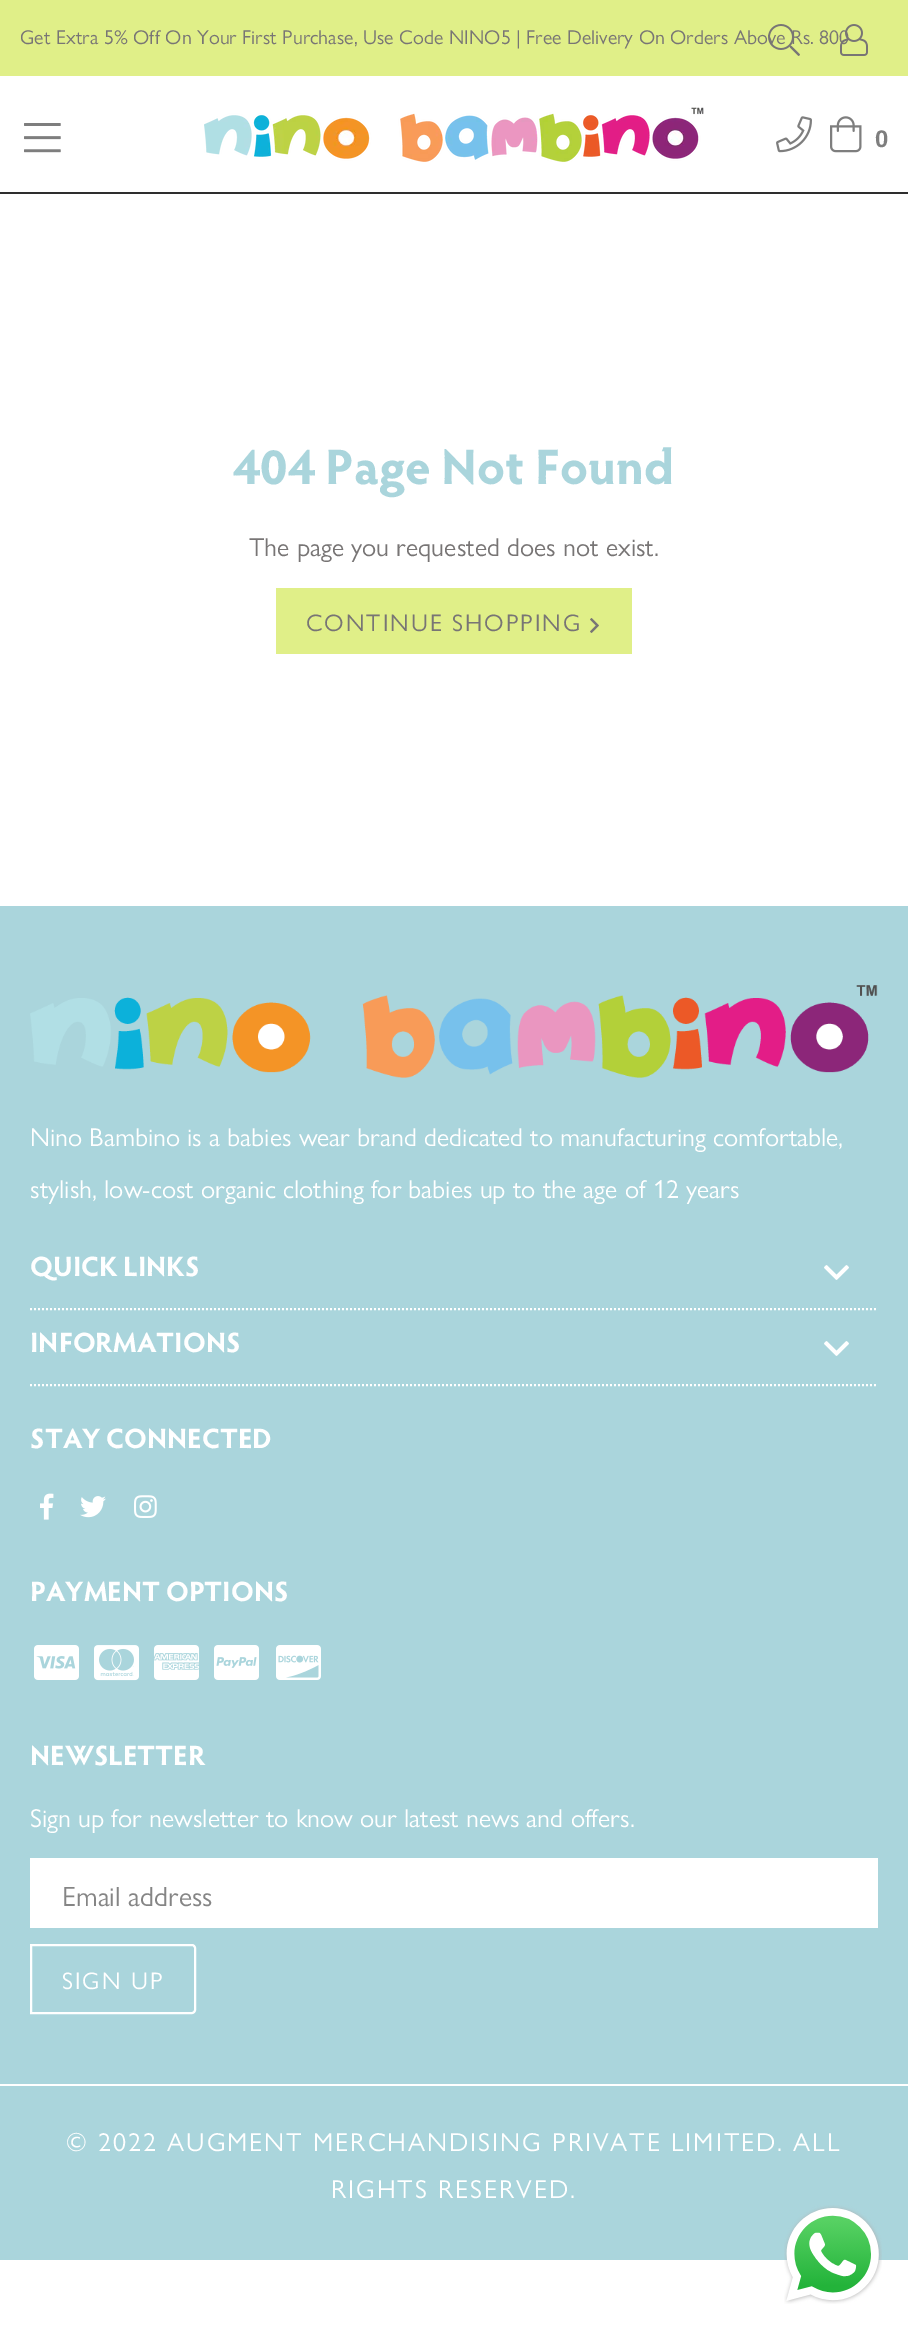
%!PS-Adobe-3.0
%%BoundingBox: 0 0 908 2329
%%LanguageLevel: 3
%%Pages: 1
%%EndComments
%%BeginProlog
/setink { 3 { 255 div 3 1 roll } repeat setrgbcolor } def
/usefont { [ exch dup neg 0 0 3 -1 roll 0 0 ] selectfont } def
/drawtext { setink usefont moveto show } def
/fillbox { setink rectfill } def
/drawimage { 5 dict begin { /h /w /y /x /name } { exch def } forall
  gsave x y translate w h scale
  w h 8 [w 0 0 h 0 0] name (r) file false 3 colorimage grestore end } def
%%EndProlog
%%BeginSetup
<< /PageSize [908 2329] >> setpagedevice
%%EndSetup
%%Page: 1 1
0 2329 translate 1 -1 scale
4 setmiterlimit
0 0 908 2329 255 255 255 fillbox
0 0 908 76 224 239 136 fillbox
(assets/img2.rgb) 840 24 28 32 drawimage
(Get Extra 5% Off On Your First Purchase, Use Code NINO5 | Free Delivery On Orders Above Rs. 800) 20 44 /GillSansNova-Regular 20 120 117 117 drawtext
(assets/img1.rgb) 768 24 32 32 drawimage
0 192 908 2 46 46 46 fillbox
(assets/img3.rgb) 24 123 37 30 drawimage
(assets/img4.rgb) 204 107 500 55 drawimage
(assets/img5.rgb) 776 116 36 37 drawimage
(assets/img6.rgb) 830 116 32 37 drawimage
(0) 875 147 /LiberationSans-Bold 24 126 126 126 drawtext
(404 Page Not Found) 233 484 /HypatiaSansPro-Bold 50 170 213 220 drawtext
(The page you requested does not exist.) 249 556 /GillSansNova-Regular 26 120 117 117 drawtext
276 588 356 66 224 239 136 fillbox
/GillSansNova-Regular 24 usefont
120 117 117 setink
306 631 moveto 2 0 (CONTINUE SHOPPING) ashow
(assets/img7.rgb) 590 618 9 15 drawimage
0 906 908 1354 170 213 220 fillbox
(assets/img8.rgb) 30 985 848 93 drawimage
(Nino Bambino is a babies wear brand dedicated to manufacturing comfortable,) 30 1146 /GillSansNova-Regular 26 255 255 255 drawtext
(stylish, low-cost organic clothing for babies up to the age of 12 years) 30 1198 /GillSansNova-Regular 26 255 255 255 drawtext
2 setlinewidth
[2 2] 0 setdash
30 1309 moveto 878 1309 lineto stroke
(QUICK LINKS) 30 1276 /HypatiaSansPro-Bold 28 255 255 255 drawtext
(assets/img9.rgb) 824 1265 25 15 drawimage
30 1385 moveto 878 1385 lineto stroke
(INFORMATIONS) 30 1352 /HypatiaSansPro-Bold 28 255 255 255 drawtext
(assets/img9.rgb) 824 1341 25 15 drawimage
(STAY CONNECTED) 30 1448 /HypatiaSansPro-Bold 28 255 255 255 drawtext
(assets/img10.rgb) 40 1493 14 27 drawimage
(assets/img11.rgb) 80 1496 26 22 drawimage
(assets/img12.rgb) 134 1495 23 23 drawimage
(PAYMENT OPTIONS) 30 1601 /HypatiaSansPro-Bold 28 255 255 255 drawtext
(assets/img13.rgb) 34 1645 45 35 drawimage
(assets/img14.rgb) 94 1645 45 36 drawimage
(assets/img15.rgb) 154 1645 45 35 drawimage
(assets/img16.rgb) 214 1645 45 35 drawimage
(assets/img17.rgb) 276 1645 45 35 drawimage
(NEWSLETTER) 30 1765 /HypatiaSansPro-Bold 28 255 255 255 drawtext
(Sign up for newsletter to know our latest news and offers.) 30 1827 /GillSansNova-Regular 26 255 255 255 drawtext
30 1858 848 70 255 255 255 fillbox
(Email address) 62 1906 /GillSansNova-Regular 28 133 133 133 drawtext
255 255 255 setink
[] 0 setdash
31 1945 moveto 192 1945 lineto 193.5 1945 195 1946.5 195 1948 curveto 195 2010 lineto 195 2011.5 193.5 2013 192 2013 curveto 31 2013 lineto closepath stroke
/GillSansNova-Regular 24 usefont
62 1989 moveto 2 0 (SIGN UP) ashow
0 2084 908 2 255 255 255 fillbox
/GillSansNova-Regular 26 usefont
66 2151 moveto 2 0 (© 2022 AUGMENT MERCHANDISING PRIVATE LIMITED. ALL) ashow
331 2198 moveto 2 0 (RIGHTS RESERVED.) ashow
(assets/img18.rgb) 784 2205 98 99 drawimage
showpage
%%EOF
